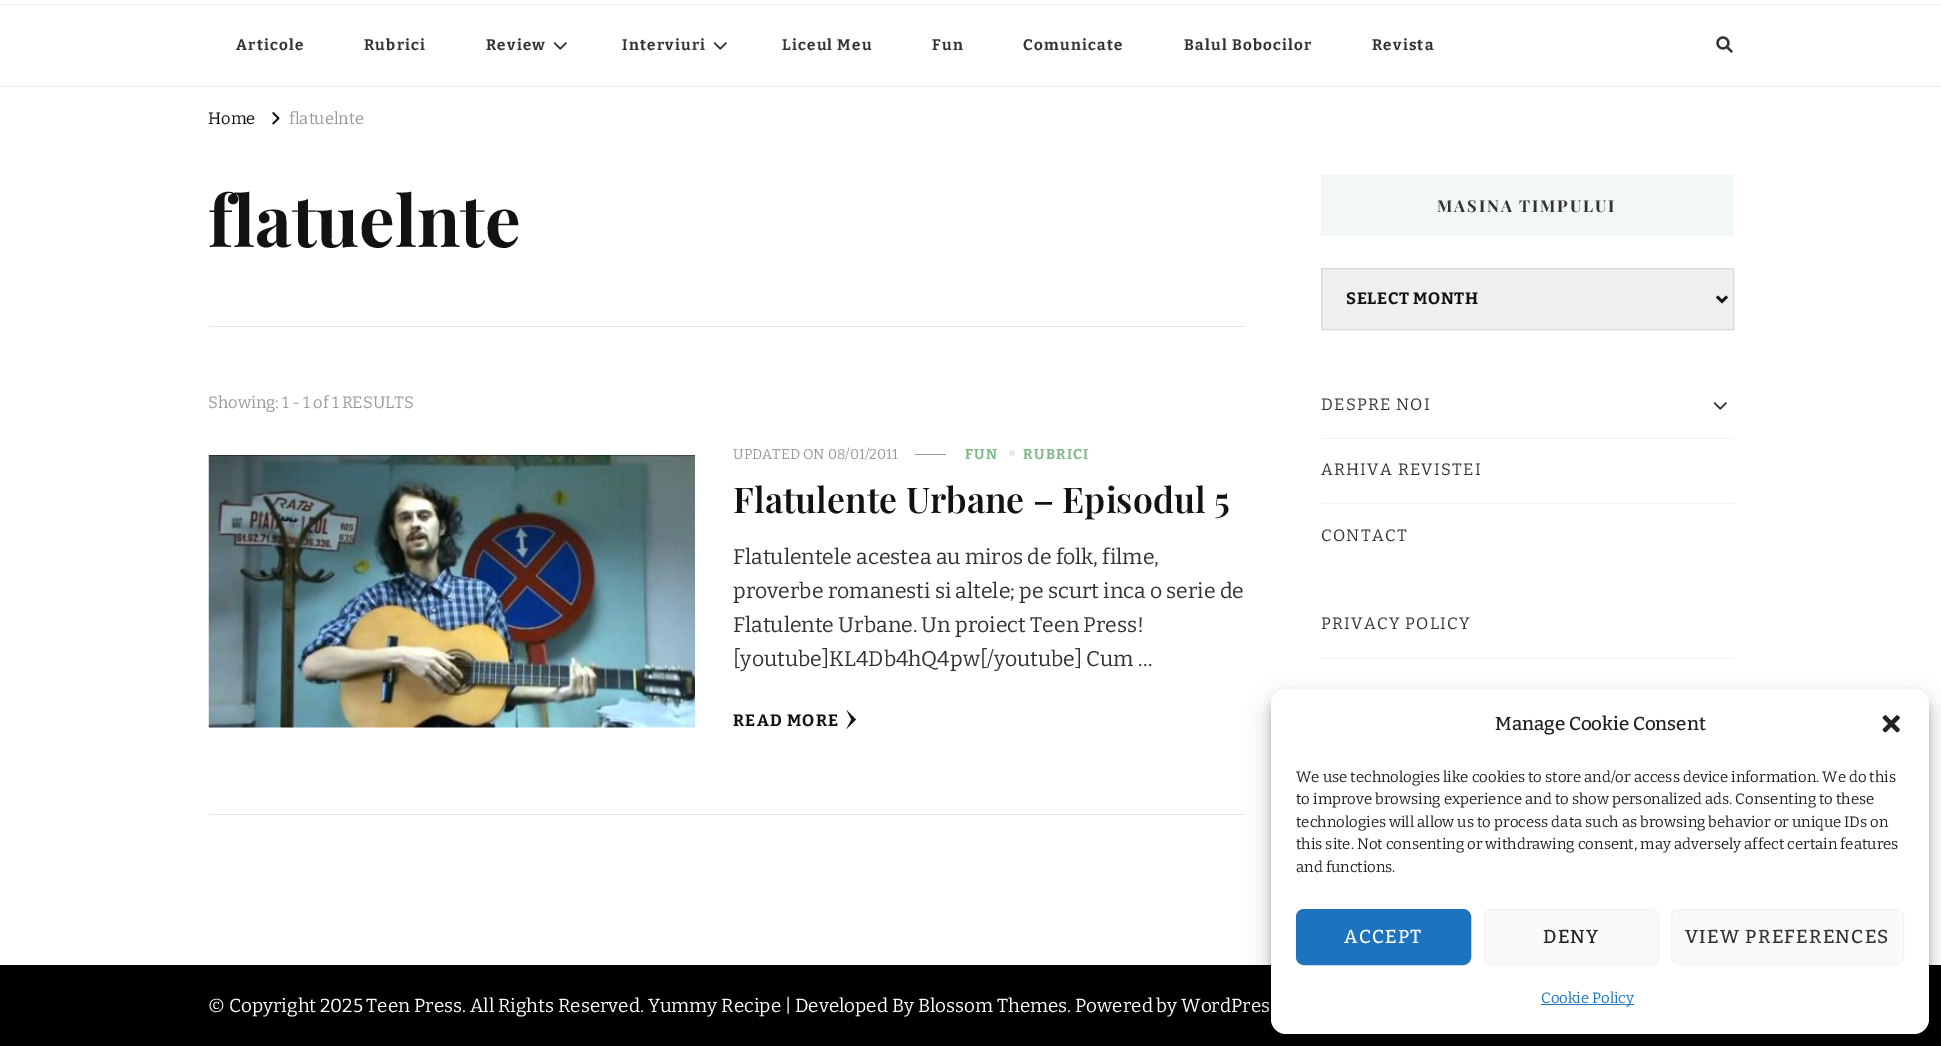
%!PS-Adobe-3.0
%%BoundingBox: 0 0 1941 1046
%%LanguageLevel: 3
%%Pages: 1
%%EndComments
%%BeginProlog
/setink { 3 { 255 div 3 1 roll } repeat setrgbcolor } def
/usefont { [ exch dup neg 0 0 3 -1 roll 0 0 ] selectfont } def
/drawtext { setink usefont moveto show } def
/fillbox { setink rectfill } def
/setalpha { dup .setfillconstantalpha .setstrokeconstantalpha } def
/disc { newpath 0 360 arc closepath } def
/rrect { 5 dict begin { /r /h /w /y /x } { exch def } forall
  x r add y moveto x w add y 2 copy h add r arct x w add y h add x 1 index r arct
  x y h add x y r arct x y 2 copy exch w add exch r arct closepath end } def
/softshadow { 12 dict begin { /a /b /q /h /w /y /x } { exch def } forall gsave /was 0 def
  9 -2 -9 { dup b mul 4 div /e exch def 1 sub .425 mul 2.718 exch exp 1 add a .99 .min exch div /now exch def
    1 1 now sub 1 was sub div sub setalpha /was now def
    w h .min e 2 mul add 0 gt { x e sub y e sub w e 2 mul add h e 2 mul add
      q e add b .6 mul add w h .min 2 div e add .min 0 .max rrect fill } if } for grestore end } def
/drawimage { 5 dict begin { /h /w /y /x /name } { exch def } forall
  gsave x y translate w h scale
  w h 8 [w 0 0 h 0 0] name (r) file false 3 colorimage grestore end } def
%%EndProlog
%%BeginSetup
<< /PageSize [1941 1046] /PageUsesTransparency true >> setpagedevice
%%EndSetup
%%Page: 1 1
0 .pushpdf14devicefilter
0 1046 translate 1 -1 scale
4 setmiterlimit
0 0 1941 1046 255 255 255 fillbox
0 4 1941 1 237 237 237 fillbox
0 86 1941 1 237 237 237 fillbox
/Bitter-Bold 15.25 usefont
51 51 51 setink
236 50 moveto 1.25 0 (Articole) ashow
364 50 moveto 1.25 0 (Rubrici) ashow
486 50 moveto 1.25 0 (Review) ashow
(assets/img1.rgb) 553 42 14 8 drawimage
622 50 moveto 1.25 0 (Interviuri) ashow
(assets/img1.rgb) 713 42 14 8 drawimage
782 50 moveto 1.25 0 (Liceul Meu) ashow
932 50 moveto 1.25 0 (Fun) ashow
1023 50 moveto 1.25 0 (Comunicate) ashow
1184 50 moveto 1.25 0 (Balul Bobocilor) ashow
1372 50 moveto 1.25 0 (Revista) ashow
(assets/img2.rgb) 1716 36 17 17 drawimage
(Home) 208 124 /Bitter-Regular 16.5 18 18 18 drawtext
(assets/img3.rgb) 272 112 8 13 drawimage
(flatuelnte) 289 124 /Bitter-Regular 16.5 153 153 153 drawtext
209 326 1036 1 230 230 230 fillbox
(flatuelnte) 208 247 /PlayfairDisplay-Bold 70.75 18 18 18 drawtext
(Showing: 1 - 1 of 1 RESULTS) 208 408 /Bitter-Regular 16.5 153 153 153 drawtext
209 814 1036 1 230 230 230 fillbox
(assets/img4.rgb) 208 455 487 273 drawimage
(UPDATED ON 08/01/2011) 733 459 /Bitter-Regular 14.25 153 153 153 drawtext
915 454 31 1 153 153 153 fillbox
/Bitter-Bold 14.25 usefont
128 183 132 setink
965 459 moveto 1.25 0 (FUN) ashow
230 230 230 setink
1012 453 3 disc fill
128 183 132 setink
1023 459 moveto 1.25 0 (RUBRICI) ashow
(Flatulente Urbane – Episodul 5) 733 513 /PlayfairDisplay-SemiBold 35.5 18 18 18 drawtext
(Flatulentele acestea au miros de folk, filme,) 733 564 /Bitter-Regular 21.25 51 51 51 drawtext
(proverbe romanesti si altele; pe scurt inca o serie de) 733 598 /Bitter-Regular 21.25 51 51 51 drawtext
(Flatulente Urbane. Un proiect Teen Press!) 733 632 /Bitter-Regular 21.25 51 51 51 drawtext
([youtube]KL4Db4hQ4pw[/youtube] Cum …) 733 666 /Bitter-Regular 21.25 51 51 51 drawtext
/Bitter-Bold 16.5 usefont
18 18 18 setink
733 726 moveto 1.25 0 (READ MORE) ashow
856 719.5 moveto 846.5 729 lineto 851.5 719.5 lineto 846.5 710 lineto closepath fill
1321 175 413 61 242 248 243 fillbox
/PlayfairDisplay-Bold 16.5 usefont
51 51 51 setink
1437 212 moveto 1.9 0 (MASINA TIMPULUI) ashow
239 239 239 setink
1321.5 268.5 moveto 1733.5 268.5 lineto 1733.5 329.5 lineto 1321.5 329.5 lineto closepath gsave fill grestore
215 215 215 setink
stroke
18 18 18 setink
2.5 setlinewidth
1717 296.5 moveto 1722 301.5 lineto 1727 296.5 lineto stroke
/Bitter-Bold 16.5 usefont
1346 304 moveto 0.6 0 (SELECT MONTH) ashow
1321 438 413 1 242 242 242 fillbox
/Bitter-Regular 16.5 usefont
51 51 51 setink
1321 410 moveto 1.25 0 (DESPRE NOI) ashow
(assets/img1.rgb) 1713 402 14 8 drawimage
1321 503 413 1 242 242 242 fillbox
51 51 51 setink
1321 475 moveto 1.25 0 (ARHIVA REVISTEI) ashow
1321 541 moveto 1.25 0 (CONTACT) ashow
1321 658 413 1 242 242 242 fillbox
51 51 51 setink
1321 629 moveto 1.25 0 (PRIVACY POLICY) ashow
0 965 1941 81 0 0 0 fillbox
(© Copyright 2025 Teen Press. All Rights Reserved. Yummy Recipe | Developed By Blossom Themes. Powered by WordPres) 208 1012 /Bitter-Regular 18.9 255 255 255 drawtext
0 0 0 setink
1271 696 658 345 15 4 0.23 softshadow
1271 701 658 345 15 12.5 0.19 softshadow
255 255 255 setink
1271 689 658 345 15 rrect fill
(Manage Cookie Consent) 1495 730 /Bitter-Medium 18.75 34 34 34 drawtext
(assets/img5.rgb) 1882 715 18 18 drawimage
(We use technologies like cookies to store and/or access device information. We do this) 1296 782 /Bitter-Regular 15 34 34 34 drawtext
(to improve browsing experience and to show personalized ads. Consenting to these) 1296 804 /Bitter-Regular 15 34 34 34 drawtext
(technologies will allow us to process data such as browsing behavior or unique IDs on) 1296 827 /Bitter-Regular 15 34 34 34 drawtext
(this site. Not consenting or withdrawing consent, may adversely affect certain features) 1296 849 /Bitter-Regular 15 34 34 34 drawtext
(and functions.) 1296 872 /Bitter-Regular 15 34 34 34 drawtext
30 115 190 setink
1296.5 909.5 174 55 7.5 rrect gsave fill grestore
1 setlinewidth
stroke
/Bitter-Medium 18.75 usefont
255 255 255 setink
1344 943 moveto 1.25 0 (ACCEPT) ashow
249 249 249 setink
1484.5 909.5 174 55 7.5 rrect gsave fill grestore
242 242 242 setink
stroke
34 34 34 setink
1543 943 moveto 1.25 0 (DENY) ashow
249 249 249 setink
1671.5 909.5 232 55 7.5 rrect gsave fill grestore
242 242 242 setink
stroke
51 51 51 setink
1685 943 moveto 1.25 0 (VIEW PREFERENCES) ashow
1541 1004 93 1 30 115 190 fillbox
(Cookie Policy) 1541 1003 /Bitter-Regular 15 30 115 190 drawtext
.poppdf14devicefilter showpage
%%EOF
